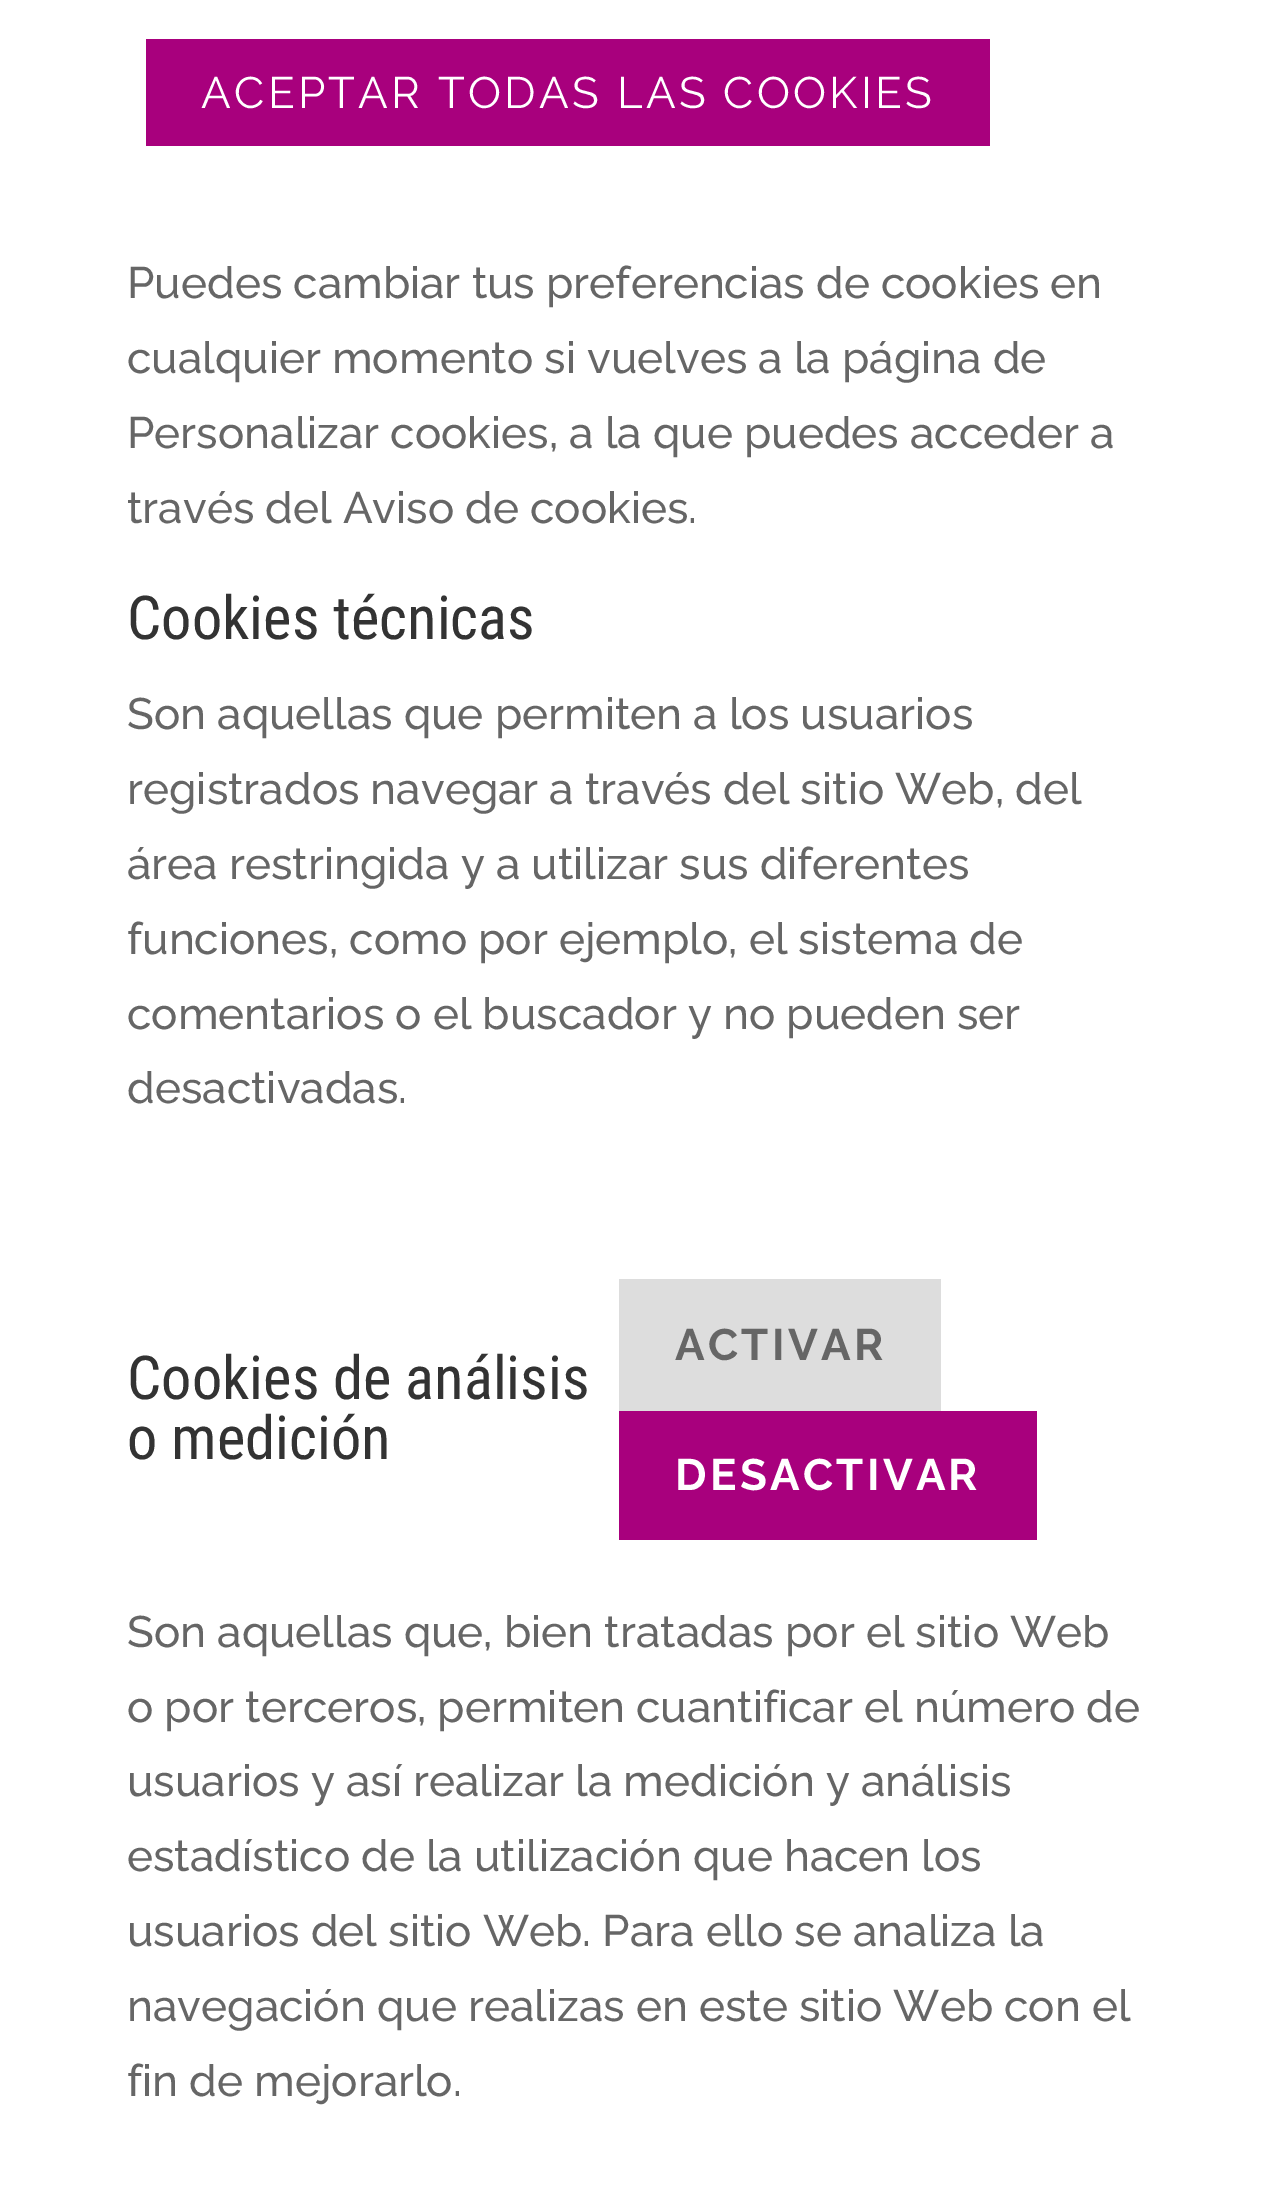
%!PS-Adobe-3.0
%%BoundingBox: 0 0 1266 2202
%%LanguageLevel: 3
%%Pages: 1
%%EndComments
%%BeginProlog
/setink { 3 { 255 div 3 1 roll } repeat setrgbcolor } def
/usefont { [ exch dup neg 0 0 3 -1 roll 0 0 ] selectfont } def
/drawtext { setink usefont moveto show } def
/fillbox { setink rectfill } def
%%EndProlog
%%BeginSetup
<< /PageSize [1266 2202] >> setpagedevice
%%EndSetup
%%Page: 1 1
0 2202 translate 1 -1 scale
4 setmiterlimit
0 0 1266 2202 255 255 255 fillbox
146 39 844 107 168 0 125 fillbox
/Raleway-Regular 44 usefont
255 255 255 setink
201 108 moveto 3.3 0 (ACEPTAR TODAS LAS COOKIES) ashow
(Puedes cambiar tus preferencias de cookies en) 127 298 /Raleway-Medium 44 102 102 102 drawtext
(cualquier momento si vuelves a la página de) 127 373 /Raleway-Medium 44 102 102 102 drawtext
(Personalizar cookies, a la que puedes acceder a) 127 448 /Raleway-Medium 44 102 102 102 drawtext
(través del Aviso de cookies.) 127 523 /Raleway-Medium 44 102 102 102 drawtext
(Cookies técnicas) 127 639 /RobotoCondensed-Regular 60.5 51 51 51 drawtext
(Son aquellas que permiten a los usuarios) 127 729 /Raleway-Medium 44 102 102 102 drawtext
(registrados navegar a través del sitio Web, del) 127 804 /Raleway-Medium 44 102 102 102 drawtext
(área restringida y a utilizar sus diferentes) 127 879 /Raleway-Medium 44 102 102 102 drawtext
(funciones, como por ejemplo, el sistema de) 127 954 /Raleway-Medium 44 102 102 102 drawtext
(comentarios o el buscador y no pueden ser) 127 1029 /Raleway-Medium 44 102 102 102 drawtext
(desactivadas.) 127 1103 /Raleway-Medium 44 102 102 102 drawtext
(Cookies de análisis) 127 1399 /RobotoCondensed-Regular 60.5 51 51 51 drawtext
(o medición) 127 1459 /RobotoCondensed-Regular 60.5 51 51 51 drawtext
619 1279 322 132 221 221 221 fillbox
/Raleway-Bold 44 usefont
102 102 102 setink
675 1360 moveto 3.3 0 (ACTIVAR) ashow
619 1411 418 129 168 0 125 fillbox
255 255 255 setink
675 1490 moveto 3.3 0 (DESACTIVAR) ashow
(Son aquellas que, bien tratadas por el sitio Web) 127 1647 /Raleway-Medium 44 102 102 102 drawtext
(o por terceros, permiten cuantificar el número de) 127 1722 /Raleway-Medium 44 102 102 102 drawtext
(usuarios y así realizar la medición y análisis) 127 1796 /Raleway-Medium 44 102 102 102 drawtext
(estadístico de la utilización que hacen los) 127 1871 /Raleway-Medium 44 102 102 102 drawtext
(usuarios del sitio Web. Para ello se analiza la) 127 1946 /Raleway-Medium 44 102 102 102 drawtext
(navegación que realizas en este sitio Web con el) 127 2021 /Raleway-Medium 44 102 102 102 drawtext
(fin de mejorarlo.) 127 2096 /Raleway-Medium 44 102 102 102 drawtext
showpage
%%EOF
